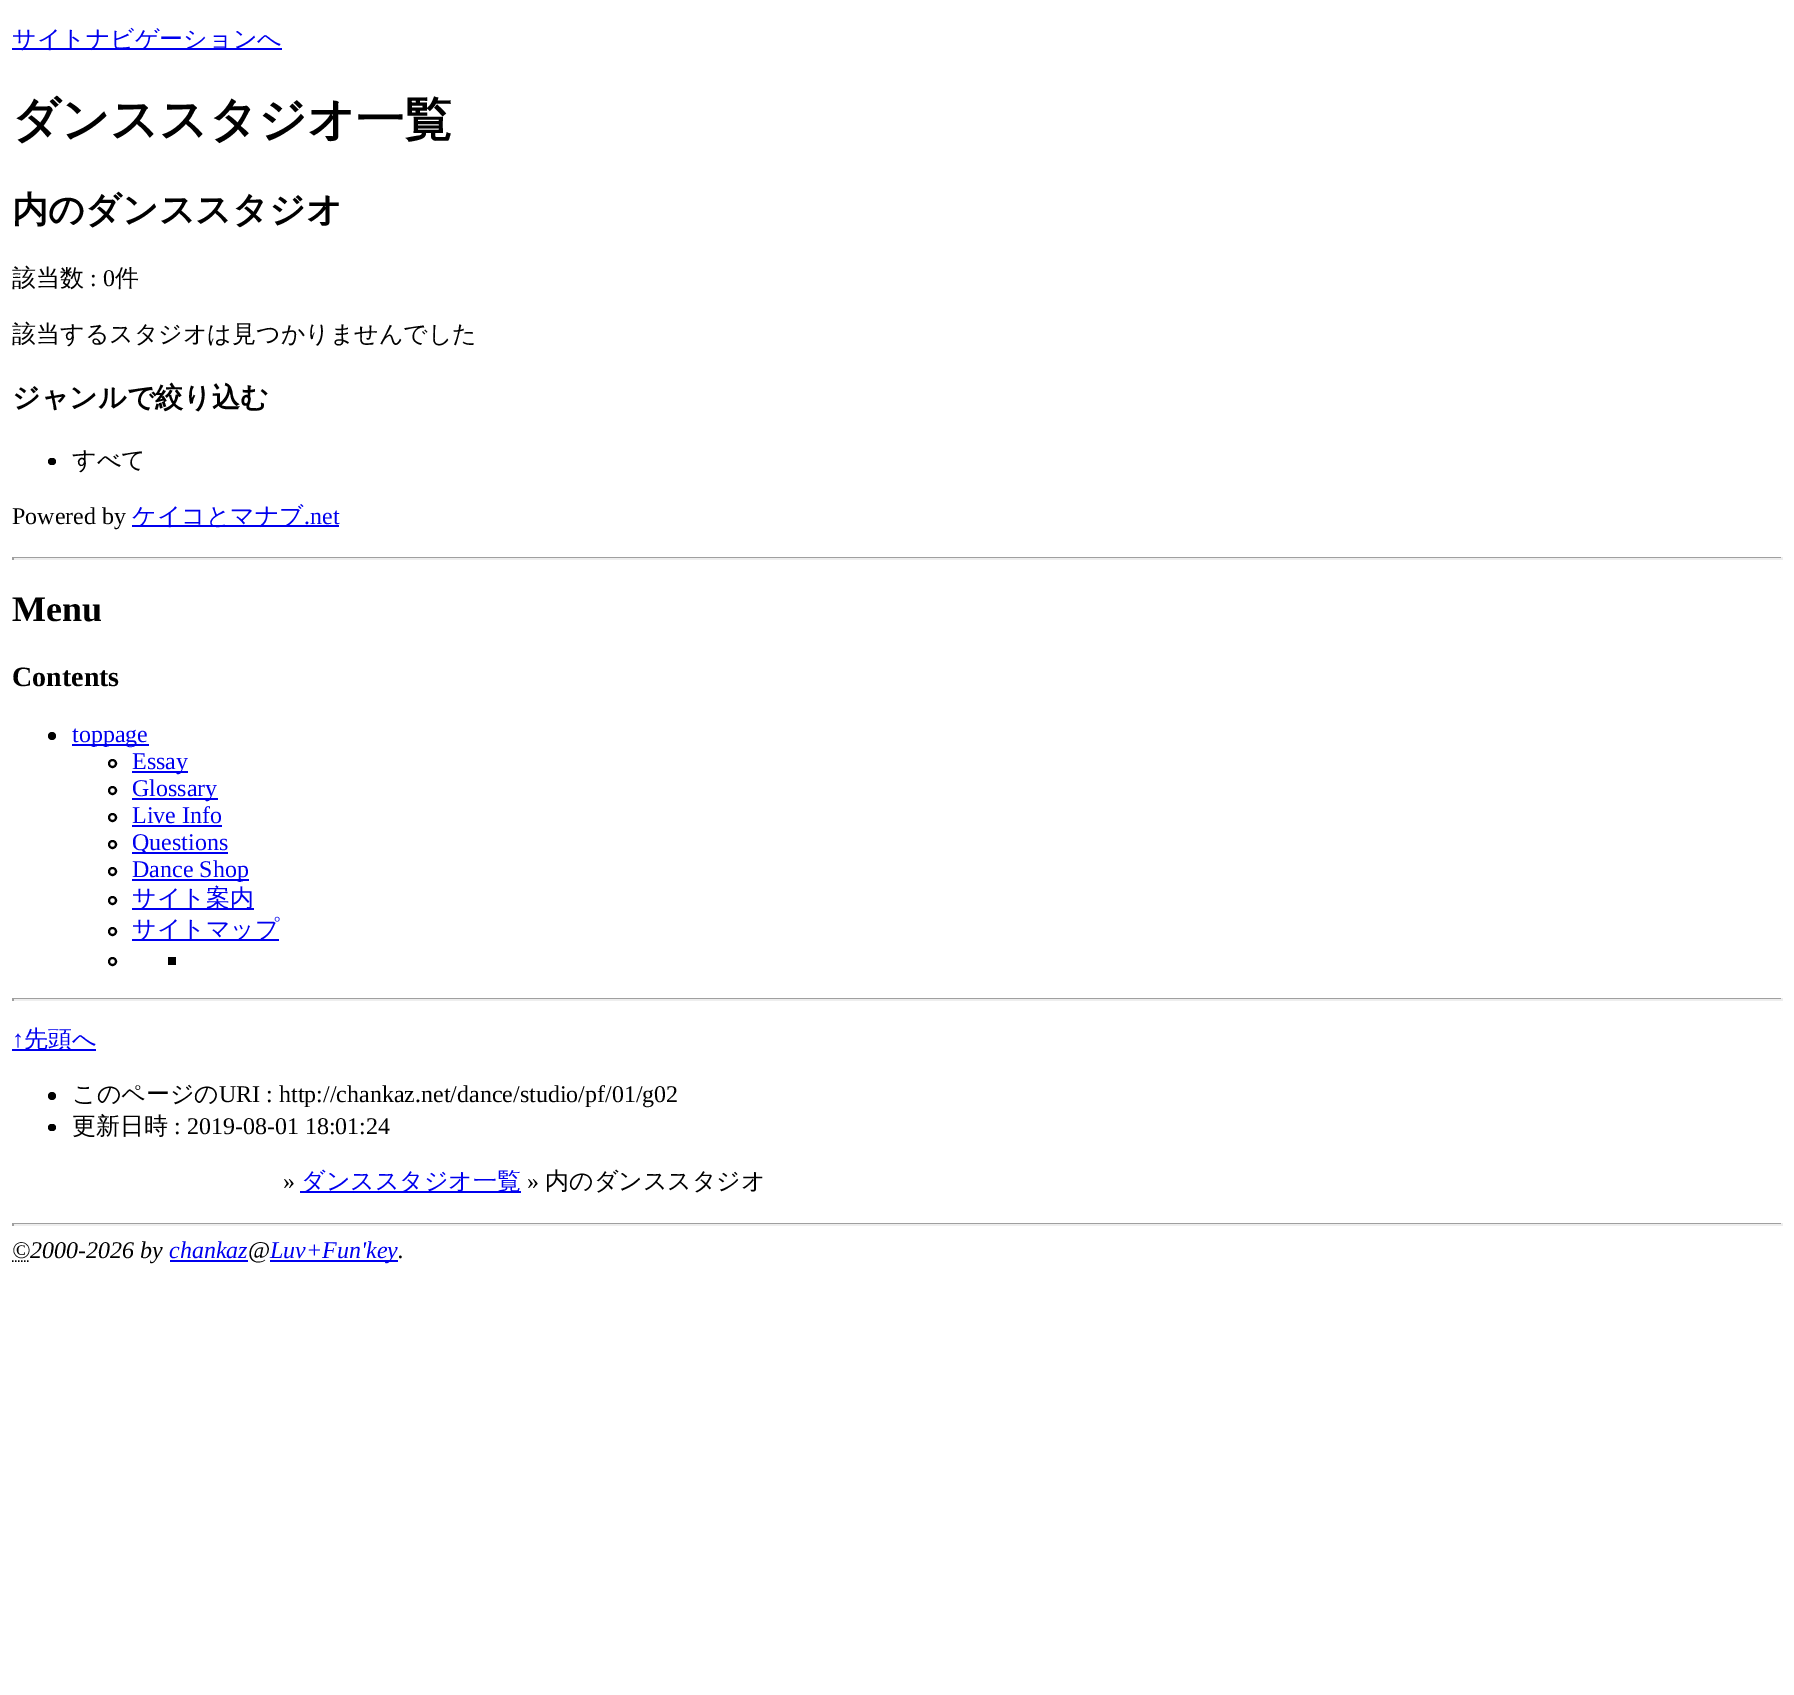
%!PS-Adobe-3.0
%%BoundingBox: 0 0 1794 1695
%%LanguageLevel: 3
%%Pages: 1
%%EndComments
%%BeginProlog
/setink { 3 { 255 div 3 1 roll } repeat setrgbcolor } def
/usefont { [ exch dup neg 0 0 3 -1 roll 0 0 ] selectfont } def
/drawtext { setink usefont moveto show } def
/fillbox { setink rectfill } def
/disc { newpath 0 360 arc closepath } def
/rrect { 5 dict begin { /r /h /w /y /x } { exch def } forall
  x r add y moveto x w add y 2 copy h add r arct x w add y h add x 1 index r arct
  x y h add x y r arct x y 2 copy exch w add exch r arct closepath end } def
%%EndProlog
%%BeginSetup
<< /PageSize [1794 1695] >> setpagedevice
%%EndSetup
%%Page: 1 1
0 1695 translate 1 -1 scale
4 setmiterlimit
0 0 1794 1695 255 255 255 fillbox
12 48 270 2 0 0 238 fillbox
(サイトナビゲーションへ) 12 47 /WenQuanYiZenHei-Medium 24 0 0 238 drawtext
(ダンススタジオ一覧) 12 136 /WenQuanYiZenHei-Bold 48 0 0 0 drawtext
(内のダンススタジオ) 12 222 /WenQuanYiZenHei-Bold 36 0 0 0 drawtext
(該当数) 12 286 /WenQuanYiZenHei-Medium 24 0 0 0 drawtext
(: 0) 90 286 /LiberationSerif-Regular 24 0 0 0 drawtext
(件) 115 286 /WenQuanYiZenHei-Medium 24 0 0 0 drawtext
(該当するスタジオは見つかりませんでした) 12 342 /WenQuanYiZenHei-Medium 24 0 0 0 drawtext
(ジャンルで絞り込む) 12 407 /WenQuanYiZenHei-Bold 28 0 0 0 drawtext
48 458 8 7 3.5 rrect fill
(すべて) 72 468 /WenQuanYiZenHei-Medium 24 0 0 0 drawtext
(Powered by) 12 524 /LiberationSerif-Regular 24 0 0 0 drawtext
132 525 207 2 0 0 238 fillbox
(ケイコとマナブ) 132 524 /WenQuanYiZenHei-Medium 24 0 0 238 drawtext
(.net) 304 524 /LiberationSerif-Regular 24 0 0 238 drawtext
12 557 1770 1 159 159 159 fillbox
1781 557 2 3 238 238 238 fillbox
12 558 1770 2 238 238 238 fillbox
12 557 2 3 159 159 159 fillbox
(Menu) 12 621 /LiberationSerif-Bold 36 0 0 0 drawtext
(Contents) 12 686 /LiberationSerif-Bold 28 0 0 0 drawtext
52 736 4 disc fill
72 744 77 2 0 0 238 fillbox
(toppage) 72 742 /LiberationSerif-Regular 24 0 0 238 drawtext
0 0 0 setink
2 setlinewidth
112.5 763.5 3.5 disc stroke
132 771 56 2 0 0 238 fillbox
(Essay) 132 769 /LiberationSerif-Regular 24 0 0 238 drawtext
0 0 0 setink
112.5 790.5 3.5 disc stroke
132 798 86 2 0 0 238 fillbox
(Glossary) 132 796 /LiberationSerif-Regular 24 0 0 238 drawtext
0 0 0 setink
112.5 817.5 3.5 disc stroke
(Live Info) 132 823 /LiberationSerif-Regular 24 0 0 238 drawtext
132 825 90 2 0 0 238 fillbox
0 0 0 setink
112.5 844.5 3.5 disc stroke
132 852 96 2 0 0 238 fillbox
(Questions) 132 850 /LiberationSerif-Regular 24 0 0 238 drawtext
0 0 0 setink
112.5 871.5 3.5 disc stroke
132 879 117 2 0 0 238 fillbox
(Dance Shop) 132 877 /LiberationSerif-Regular 24 0 0 238 drawtext
0 0 0 setink
112.5 900.5 3.5 disc stroke
132 908 122 2 0 0 238 fillbox
(サイト案内) 132 906 /WenQuanYiZenHei-Medium 24 0 0 238 drawtext
0 0 0 setink
112.5 931.5 3.5 disc stroke
132 939 147 2 0 0 238 fillbox
(サイトマップ) 132 937 /WenQuanYiZenHei-Medium 24 0 0 238 drawtext
0 0 0 setink
112.5 961.5 3.5 disc stroke
168 957 8 8 0 0 0 fillbox
12 998 1770 1 159 159 159 fillbox
1781 998 2 3 238 238 238 fillbox
12 999 1770 2 238 238 238 fillbox
12 998 2 3 159 159 159 fillbox
(↑) 12 1047 /LiberationSerif-Regular 24 0 0 238 drawtext
12 1049 84 2 0 0 238 fillbox
(先頭へ) 24 1047 /WenQuanYiZenHei-Medium 24 0 0 238 drawtext
0 0 0 setink
52 1096 4 disc fill
(このページの) 72 1102 /WenQuanYiZenHei-Medium 24 0 0 0 drawtext
(URI : http://chankaz.net/dance/studio/pf/01/g02) 219 1102 /LiberationSerif-Regular 24 0 0 0 drawtext
48 1124 8 7 3.5 rrect fill
(更新日時) 72 1134 /WenQuanYiZenHei-Medium 24 0 0 0 drawtext
(: 2019-08-01 18:01:24) 174 1134 /LiberationSerif-Regular 24 0 0 0 drawtext
(») 283 1189 /LiberationSerif-Regular 24 0 0 0 drawtext
300 1191 221 2 0 0 238 fillbox
(ダンススタジオ一覧) 301 1189 /WenQuanYiZenHei-Medium 24 0 0 238 drawtext
(») 527 1189 /LiberationSerif-Regular 24 0 0 0 drawtext
(内のダンススタジオ) 545 1189 /WenQuanYiZenHei-Medium 24 0 0 0 drawtext
12 1223 1770 1 159 159 159 fillbox
1781 1223 2 3 238 238 238 fillbox
12 1224 1770 2 238 238 238 fillbox
12 1223 2 3 159 159 159 fillbox
0 0 0 setink
1.5 setlinewidth
[1.5 1.5] 0 setdash
12 1261 moveto 30 1261 lineto stroke
(©2000-2026 by) 12 1258 /LiberationSerif-Italic 24 0 0 0 drawtext
(chankaz) 169 1258 /LiberationSerif-Italic 24 0 0 238 drawtext
170 1260 78 2 0 0 238 fillbox
(@) 248 1258 /LiberationSerif-Italic 24 0 0 0 drawtext
270 1260 128 2 0 0 238 fillbox
(Luv+Fun'key) 270 1258 /LiberationSerif-Italic 24 0 0 238 drawtext
(.) 398 1258 /LiberationSerif-Italic 24 0 0 0 drawtext
showpage
%%EOF
